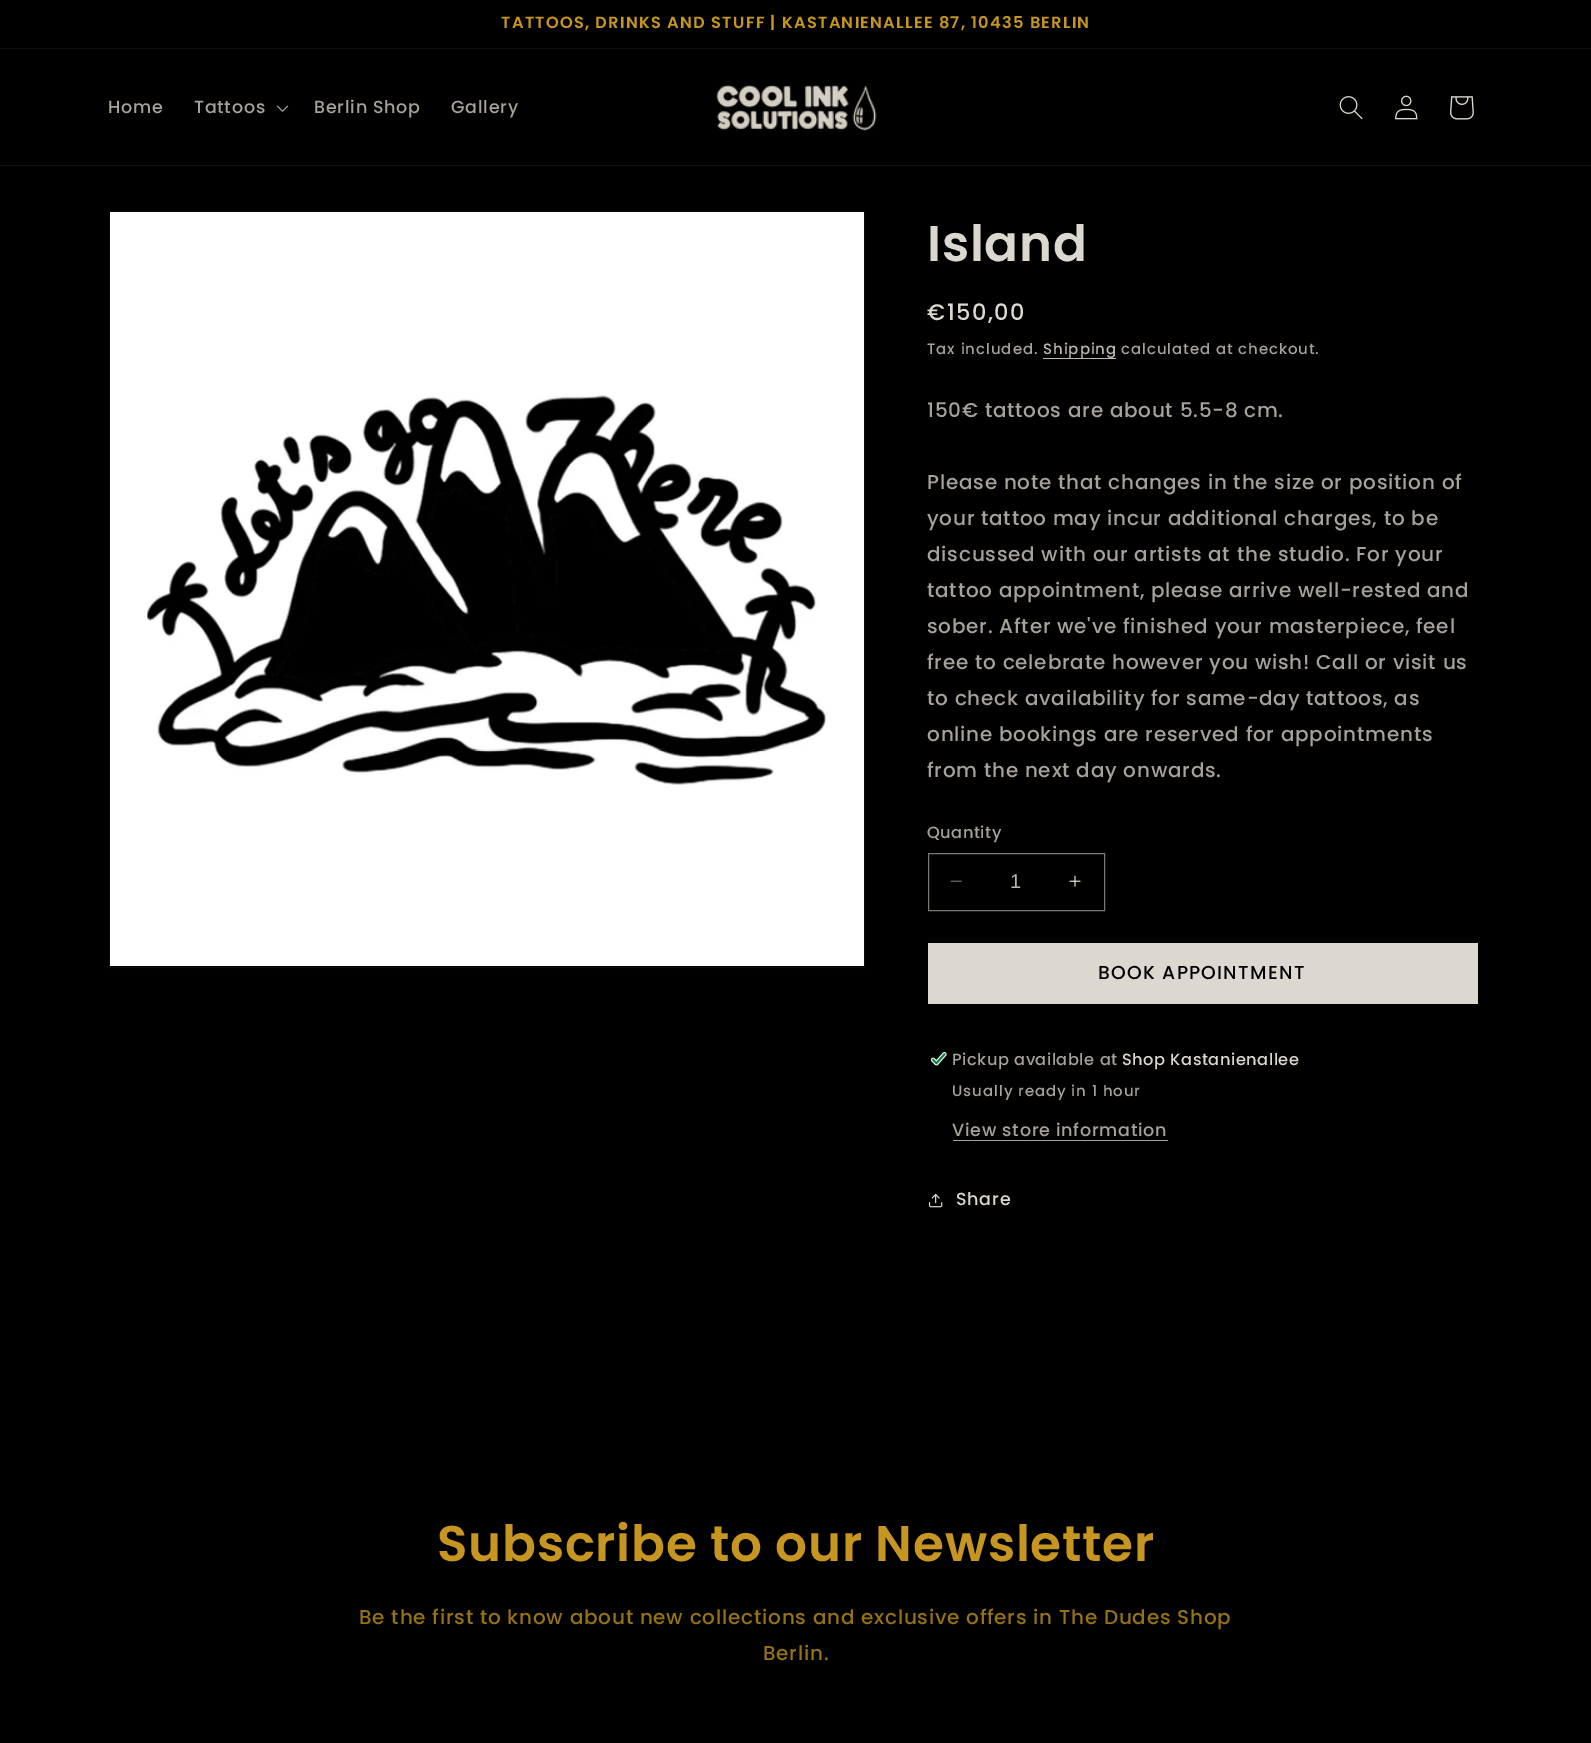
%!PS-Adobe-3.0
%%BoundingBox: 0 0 1591 1743
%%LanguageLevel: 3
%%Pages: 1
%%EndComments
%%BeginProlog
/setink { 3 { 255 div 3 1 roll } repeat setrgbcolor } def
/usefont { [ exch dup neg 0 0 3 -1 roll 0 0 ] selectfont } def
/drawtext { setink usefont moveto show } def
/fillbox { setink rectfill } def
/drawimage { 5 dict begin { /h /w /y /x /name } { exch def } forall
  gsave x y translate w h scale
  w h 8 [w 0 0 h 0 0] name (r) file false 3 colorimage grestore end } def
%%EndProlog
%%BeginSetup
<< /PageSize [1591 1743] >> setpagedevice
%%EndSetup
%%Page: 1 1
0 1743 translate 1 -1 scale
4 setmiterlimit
0 0 1591 1743 0 0 0 fillbox
0 48 1591 1 16 12 3 fillbox
/Poppins-SemiBold 16.25 usefont
199 150 32 setink
501 28 moveto 1.25 0 (TATTOOS, DRINKS AND STUFF | KASTANIENALLEE 87, 10435 BERLIN) ashow
0 165 1591 1 18 17 17 fillbox
/Poppins-Medium 17.5 usefont
166 162 155 setink
108 113 moveto 0.75 0 (Home) ashow
194 113 moveto 0.75 0 (Tattoos) ashow
(assets/img1.rgb) 276 105 13 7 drawimage
314 113 moveto 0.75 0 (Berlin Shop) ashow
451 113 moveto 0.75 0 (Gallery) ashow
(assets/img2.rgb) 716 85 161 46 drawimage
(assets/img3.rgb) 1339 96 24 24 drawimage
(assets/img4.rgb) 1395 95 23 25 drawimage
(assets/img5.rgb) 1450 96 24 24 drawimage
11 11 10 setink
109.5 211.5 755 756 rectstroke
(assets/img6.rgb) 110 212 754 754 drawimage
/Poppins-SemiBold 50 usefont
221 216 207 setink
927 261 moveto 0.75 0 (Island) ashow
/Poppins-Medium 22.5 usefont
927 320 moveto 1.5 0 (€150,00) ashow
/Poppins-Medium 15 usefont
166 162 155 setink
927 354 moveto 0.9 0 (Tax included.) ashow
1043 358 73 1 188 184 176 fillbox
1043 354 moveto 0.9 0 (Shipping) ashow
166 162 155 setink
1121 354 moveto 0.9 0 (calculated at checkout.) ashow
/Poppins-Medium 20 usefont
927 417 moveto 0.75 0 (150€ tattoos are about 5.5-8 cm.) ashow
927 489 moveto 0.75 0 (Please note that changes in the size or position of) ashow
927 525 moveto 0.75 0 (your tattoo may incur additional charges, to be) ashow
927 561 moveto 0.75 0 (discussed with our artists at the studio. For your) ashow
927 597 moveto 0.75 0 (tattoo appointment, please arrive well-rested and) ashow
927 633 moveto 0.75 0 (sober. After we've finished your masterpiece, feel) ashow
927 669 moveto 0.75 0 (free to celebrate however you wish! Call or visit us) ashow
927 705 moveto 0.75 0 (to check availability for same-day tattoos, as) ashow
927 741 moveto 0.75 0 (online bookings are reserved for appointments) ashow
927 777 moveto 0.75 0 (from the next day onwards.) ashow
/Poppins-Medium 16.25 usefont
927 838 moveto 0.5 0 (Quantity) ashow
(assets/img7.rgb) 950 880 12 2 drawimage
(assets/img8.rgb) 1069 875 12 12 drawimage
122 119 114 setink
928.5 853.5 176 57 rectstroke
(1) 1010 888 /LiberationSans-Regular 20 188 184 176 drawtext
928 943 550 61 221 216 207 fillbox
/Poppins-Medium 18.75 usefont
0 0 0 setink
1098 979 moveto 1.25 0 (BOOK APPOINTMENT) ashow
(assets/img9.rgb) 930 1052 17 14 drawimage
/Poppins-Medium 16.25 usefont
166 162 155 setink
952 1065 moveto 0.5 0 (Pickup available at) ashow
221 216 207 setink
1122 1065 moveto 0.5 0 (Shop Kastanienallee) ashow
/Poppins-Medium 15 usefont
166 162 155 setink
952 1096 moveto 0.9 0 (Usually ready in 1 hour) ashow
/Poppins-Medium 17.5 usefont
952 1136 moveto 0.75 0 (View store information) ashow
953 1140 215 1 166 162 155 fillbox
(assets/img10.rgb) 928 1193 15 15 drawimage
221 216 207 setink
956 1205 moveto 0.75 0 (Share) ashow
/Poppins-SemiBold 50 usefont
199 150 32 setink
437 1561 moveto 0.75 0 (Subscribe to our Newsletter) ashow
/Poppins-Medium 20 usefont
149 113 24 setink
359 1624 moveto 0.75 0 (Be the first to know about new collections and exclusive offers in The Dudes Shop) ashow
763 1660 moveto 0.75 0 (Berlin.) ashow
showpage
%%EOF
